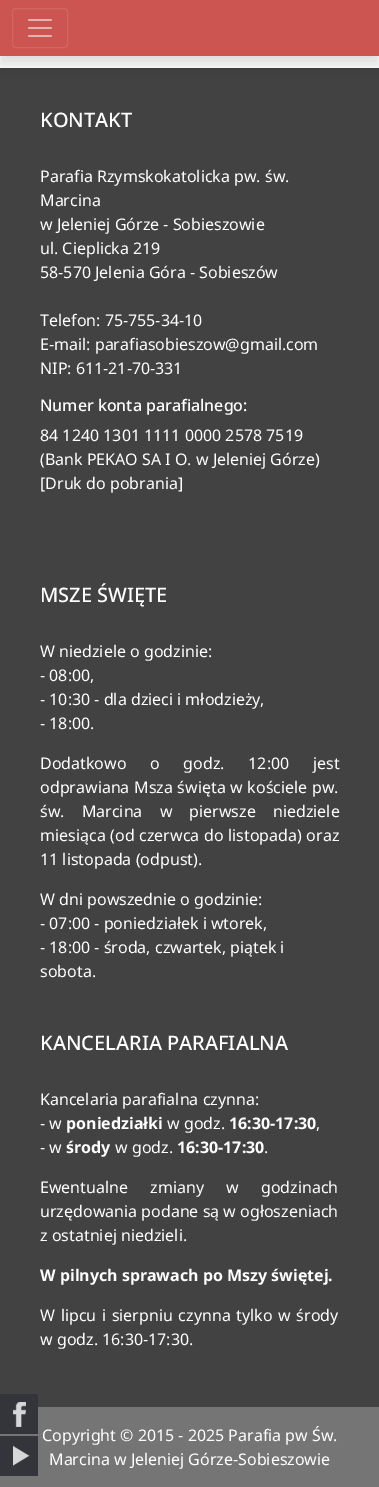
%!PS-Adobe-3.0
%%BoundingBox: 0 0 379 1487
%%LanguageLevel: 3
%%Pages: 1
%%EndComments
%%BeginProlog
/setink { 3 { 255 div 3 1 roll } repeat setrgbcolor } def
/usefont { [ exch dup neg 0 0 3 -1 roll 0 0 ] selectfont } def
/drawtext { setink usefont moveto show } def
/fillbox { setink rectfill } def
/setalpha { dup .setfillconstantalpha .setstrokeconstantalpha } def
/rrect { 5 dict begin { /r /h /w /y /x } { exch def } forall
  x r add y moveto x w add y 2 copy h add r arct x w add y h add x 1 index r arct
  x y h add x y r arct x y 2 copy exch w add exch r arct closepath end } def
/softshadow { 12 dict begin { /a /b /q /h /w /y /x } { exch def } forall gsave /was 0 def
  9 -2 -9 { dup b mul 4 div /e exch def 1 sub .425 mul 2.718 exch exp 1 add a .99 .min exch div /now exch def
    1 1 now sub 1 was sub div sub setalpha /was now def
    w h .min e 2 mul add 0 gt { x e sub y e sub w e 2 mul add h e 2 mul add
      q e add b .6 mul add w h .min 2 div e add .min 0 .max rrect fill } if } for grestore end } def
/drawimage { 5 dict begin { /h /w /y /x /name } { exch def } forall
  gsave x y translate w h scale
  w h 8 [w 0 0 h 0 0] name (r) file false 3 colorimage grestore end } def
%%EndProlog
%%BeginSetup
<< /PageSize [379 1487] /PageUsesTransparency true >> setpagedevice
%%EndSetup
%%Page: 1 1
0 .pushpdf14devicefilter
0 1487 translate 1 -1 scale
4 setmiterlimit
0 0 379 1487 255 255 255 fillbox
0 68 379 1339 66 66 66 fillbox
0 0 0 setink
0 8 379 56 0 8 0.15 softshadow
0 0 379 56 205 85 81 fillbox
210 102 98 setink
12.5 8.5 55 39 3.5 rrect stroke
(assets/img1.rgb) 28 19 24 18 drawimage
(KONTAKT) 40 127 /NotoSans-Medium 20 255 255 255 drawtext
(Parafia Rzymskokatolicka pw. św.) 40 182 /NotoSans-Regular 16 255 255 255 drawtext
(Marcina) 40 206 /NotoSans-Regular 16 255 255 255 drawtext
(w Jeleniej Górze - Sobieszowie) 40 230 /NotoSans-Regular 16 255 255 255 drawtext
(ul. Cieplicka 219) 40 254 /NotoSans-Regular 16 255 255 255 drawtext
(58-570 Jelenia Góra - Sobieszów) 40 278 /NotoSans-Regular 16 255 255 255 drawtext
(Telefon: 75-755-34-10) 40 326 /NotoSans-Regular 16 255 255 255 drawtext
(E-mail: parafiasobieszow@gmail.com) 40 350 /NotoSans-Regular 16 255 255 255 drawtext
(NIP: 611-21-70-331) 40 374 /NotoSans-Regular 16 255 255 255 drawtext
(Numer konta parafialnego:) 40 411 /NotoSans-Medium 16 255 255 255 drawtext
(84 1240 1301 1111 0000 2578 7519) 40 441 /NotoSans-Regular 16 255 255 255 drawtext
(\(Bank PEKAO SA I O. w Jeleniej Górze\)) 40 465 /NotoSans-Regular 16 255 255 255 drawtext
([Druk do pobrania]) 40 489 /NotoSans-Regular 16 255 255 255 drawtext
(MSZE ŚWIĘTE) 40 602 /NotoSans-Medium 20 255 255 255 drawtext
(W niedziele o godzinie:) 40 657 /NotoSans-Regular 16 255 255 255 drawtext
(- 08:00,) 40 681 /NotoSans-Regular 16 255 255 255 drawtext
(- 10:30 - dla dzieci i młodzieży,) 40 705 /NotoSans-Regular 16 255 255 255 drawtext
(- 18:00.) 40 729 /NotoSans-Regular 16 255 255 255 drawtext
40 769 moveto 19.5 0 32 (Dodatkowo o godz. 12:00 jest) widthshow
40 793 moveto 0.5 0 32 (odprawiana Msza święta w kościele pw.) widthshow
40 817 moveto 13 0 32 (św. Marcina w pierwsze niedziele) widthshow
40 841 moveto 0.5 0 32 (miesiąca \(od czerwca do listopada\) oraz) widthshow
(11 listopada \(odpust\).) 40 865 /NotoSans-Regular 16 255 255 255 drawtext
(W dni powszednie o godzinie:) 40 905 /NotoSans-Regular 16 255 255 255 drawtext
(- 07:00 - poniedziałek i wtorek,) 40 929 /NotoSans-Regular 16 255 255 255 drawtext
(- 18:00 - środa, czwartek, piątek i) 40 953 /NotoSans-Regular 16 255 255 255 drawtext
(sobota.) 40 977 /NotoSans-Regular 16 255 255 255 drawtext
(KANCELARIA PARAFIALNA) 40 1050 /NotoSans-Medium 20 255 255 255 drawtext
(Kancelaria parafialna czynna:) 40 1105 /NotoSans-Regular 16 255 255 255 drawtext
(- w) 40 1129 /NotoSans-Regular 16 255 255 255 drawtext
(poniedziałki) 66 1129 /NotoSans-Bold 16 255 255 255 drawtext
(w godz.) 167 1129 /NotoSans-Regular 16 255 255 255 drawtext
(16:30-17:30) 229 1129 /NotoSans-Bold 16 255 255 255 drawtext
(,) 316 1129 /NotoSans-Regular 16 255 255 255 drawtext
(- w) 40 1153 /NotoSans-Regular 16 255 255 255 drawtext
(środy) 66 1153 /NotoSans-Bold 16 255 255 255 drawtext
(w godz.) 115 1153 /NotoSans-Regular 16 255 255 255 drawtext
(16:30-17:30) 177 1153 /NotoSans-Bold 16 255 255 255 drawtext
(.) 264 1153 /NotoSans-Regular 16 255 255 255 drawtext
40 1193 moveto 18 0 32 (Ewentualne zmiany w godzinach) widthshow
(urzędowania podane są w ogłoszeniach) 40 1217 /NotoSans-Regular 16 255 255 255 drawtext
(z ostatniej niedzieli.) 40 1241 /NotoSans-Regular 16 255 255 255 drawtext
(W pilnych sprawach po Mszy świętej.) 40 1281 /NotoSans-Bold 16 255 255 255 drawtext
/NotoSans-Regular 16 usefont
40 1321 moveto 1.5 0 32 (W lipcu i sierpniu czynna tylko w środy) widthshow
(w godz. 16:30-17:30.) 40 1345 /NotoSans-Regular 16 255 255 255 drawtext
0 1407 379 80 117 117 117 fillbox
0 1394 38 40 51 53 59 fillbox
(assets/img2.rgb) 13 1402 13 25 drawimage
0 1436 38 40 51 53 59 fillbox
(assets/img3.rgb) 13 1445 17 22 drawimage
(Copyright © 2015 - 2025 Parafia pw Św.) 42 1441 /NotoSans-Regular 16 255 255 255 drawtext
(Marcina w Jeleniej Górze-Sobieszowie) 49 1465 /NotoSans-Regular 16 255 255 255 drawtext
.poppdf14devicefilter showpage
%%EOF
